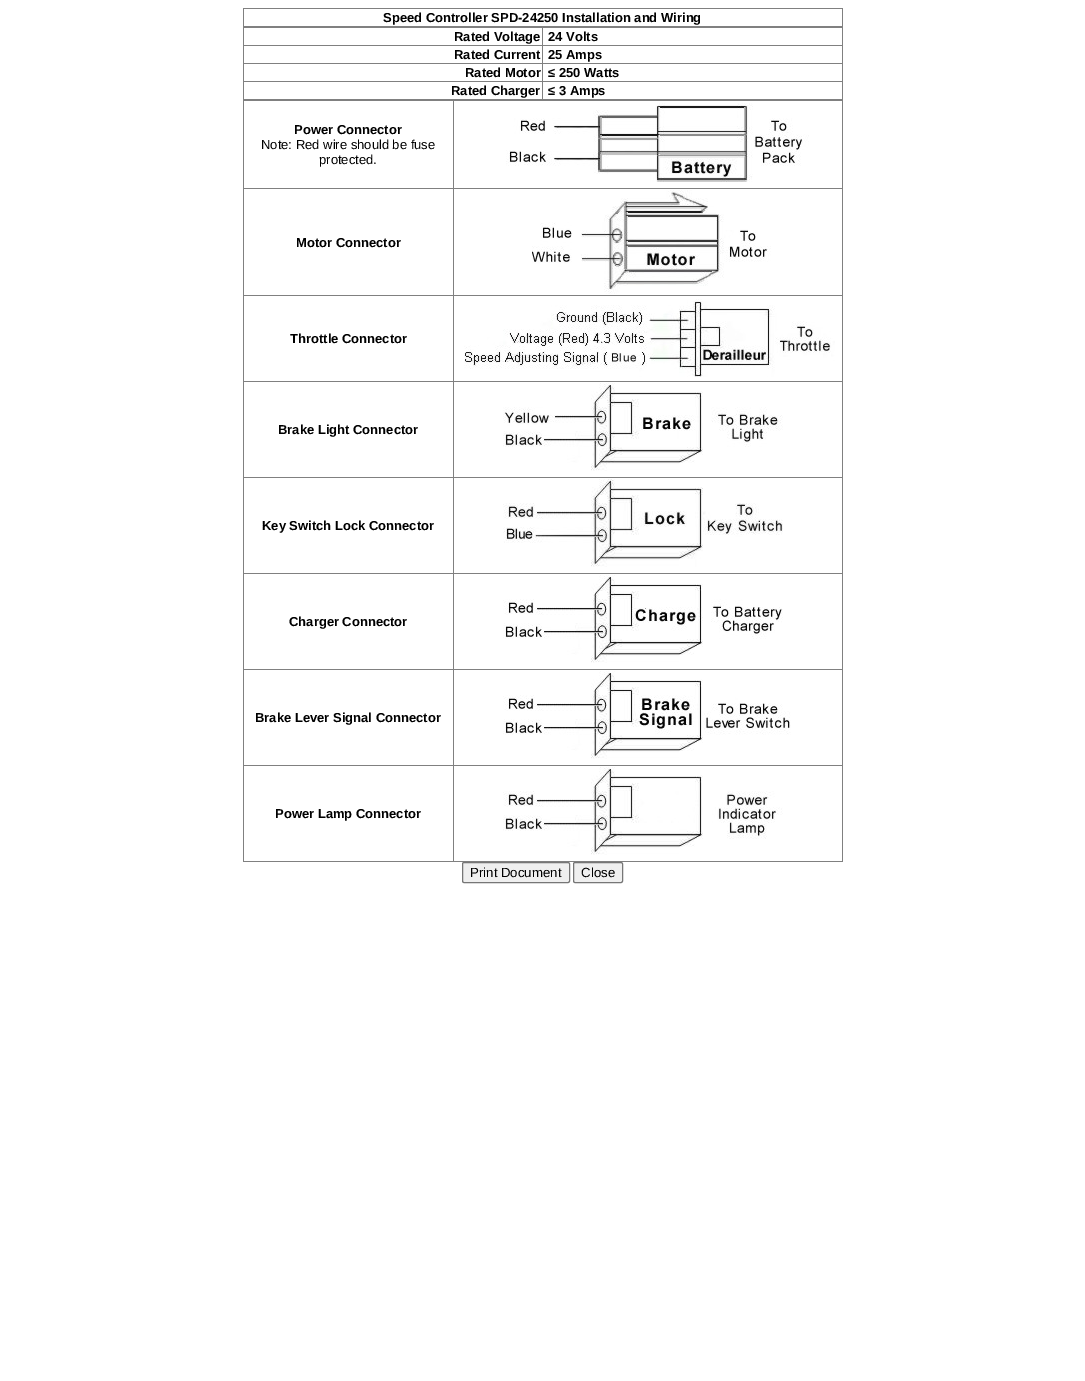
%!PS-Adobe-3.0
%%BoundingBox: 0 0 1085 1381
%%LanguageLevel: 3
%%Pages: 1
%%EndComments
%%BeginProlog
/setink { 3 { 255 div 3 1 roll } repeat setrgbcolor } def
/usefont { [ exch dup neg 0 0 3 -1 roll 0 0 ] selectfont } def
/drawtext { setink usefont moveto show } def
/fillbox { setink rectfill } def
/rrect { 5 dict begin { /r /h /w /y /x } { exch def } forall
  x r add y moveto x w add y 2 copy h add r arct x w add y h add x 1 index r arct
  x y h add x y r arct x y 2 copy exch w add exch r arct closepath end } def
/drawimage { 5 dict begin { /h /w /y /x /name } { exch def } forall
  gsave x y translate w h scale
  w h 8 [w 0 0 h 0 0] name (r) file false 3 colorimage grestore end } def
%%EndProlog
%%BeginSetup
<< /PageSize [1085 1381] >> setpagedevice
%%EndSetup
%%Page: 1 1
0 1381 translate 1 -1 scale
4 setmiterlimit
0 0 1085 1381 255 255 255 fillbox
243 8 600 1 128 128 128 fillbox
842 8 1 19 128 128 128 fillbox
243 26 600 2 128 128 128 fillbox
243 8 1 19 128 128 128 fillbox
(Speed Controller SPD-24250 Installation and Wiring) 383 22 /LiberationSans-Bold 13 0 0 0 drawtext
842 27 1 73 128 128 128 fillbox
243 99 600 2 128 128 128 fillbox
243 27 1 73 128 128 128 fillbox
(Rated Voltage) 454 41 /LiberationSans-Bold 13 0 0 0 drawtext
542 45 301 1 128 128 128 fillbox
542 63 301 1 128 128 128 fillbox
542 81 301 1 128 128 128 fillbox
542 81 1 19 128 128 128 fillbox
243 81 300 1 128 128 128 fillbox
542 63 1 19 128 128 128 fillbox
243 63 300 1 128 128 128 fillbox
542 45 1 19 128 128 128 fillbox
243 45 300 1 128 128 128 fillbox
542 27 1 19 128 128 128 fillbox
(24 Volts) 548 41 /LiberationSans-Bold 13 0 0 0 drawtext
(Rated Current) 454 59 /LiberationSans-Bold 13 0 0 0 drawtext
(25 Amps) 548 59 /LiberationSans-Bold 13 0 0 0 drawtext
(Rated Motor) 465 77 /LiberationSans-Bold 13 0 0 0 drawtext
(≤ 250 Watts) 548 77 /LiberationSans-Bold 13 0 0 0 drawtext
(Rated Charger) 451 95 /LiberationSans-Bold 13 0 0 0 drawtext
(≤ 3 Amps) 548 95 /LiberationSans-Bold 13 0 0 0 drawtext
842 100 1 762 128 128 128 fillbox
243 861 600 1 128 128 128 fillbox
243 100 1 762 128 128 128 fillbox
(Power Connector) 294 134 /LiberationSans-Bold 13 0 0 0 drawtext
(Note: Red wire should be fuse) 261 149 /LiberationSans-Regular 13 0 0 0 drawtext
(protected.) 319 164 /LiberationSans-Regular 13 0 0 0 drawtext
453 188 390 1 128 128 128 fillbox
453 295 390 1 128 128 128 fillbox
453 381 390 1 128 128 128 fillbox
453 477 390 1 128 128 128 fillbox
453 573 390 1 128 128 128 fillbox
453 669 390 1 128 128 128 fillbox
453 765 390 1 128 128 128 fillbox
453 765 1 97 128 128 128 fillbox
243 765 211 1 128 128 128 fillbox
453 669 1 97 128 128 128 fillbox
243 669 211 1 128 128 128 fillbox
453 573 1 97 128 128 128 fillbox
243 573 211 1 128 128 128 fillbox
453 477 1 97 128 128 128 fillbox
243 477 211 1 128 128 128 fillbox
453 381 1 97 128 128 128 fillbox
243 381 211 1 128 128 128 fillbox
453 295 1 87 128 128 128 fillbox
243 295 211 1 128 128 128 fillbox
453 188 1 108 128 128 128 fillbox
243 188 211 1 128 128 128 fillbox
453 100 1 89 128 128 128 fillbox
(assets/img1.rgb) 506 103 303 79 drawimage
(Motor Connector) 296 247 /LiberationSans-Bold 13 0 0 0 drawtext
(assets/img2.rgb) 532 190 239 104 drawimage
(Throttle Connector) 290 343 /LiberationSans-Bold 13 0 0 0 drawtext
(assets/img3.rgb) 464 299 371 78 drawimage
(Brake Light Connector) 278 434 /LiberationSans-Bold 13 0 0 0 drawtext
(assets/img4.rgb) 503 383 280 88 drawimage
(Key Switch Lock Connector) 262 530 /LiberationSans-Bold 13 0 0 0 drawtext
(assets/img5.rgb) 503 479 280 88 drawimage
(Charger Connector) 289 626 /LiberationSans-Bold 13 0 0 0 drawtext
(assets/img6.rgb) 503 575 280 88 drawimage
(Brake Lever Signal Connector) 255 722 /LiberationSans-Bold 13 0 0 0 drawtext
(assets/img7.rgb) 503 671 288 88 drawimage
(Power Lamp Connector) 275 818 /LiberationSans-Bold 13 0 0 0 drawtext
(assets/img8.rgb) 503 767 280 88 drawimage
239 239 239 setink
462.5 862.5 107 20 1.5 rrect gsave fill grestore
118 118 118 setink
stroke
(Print Document) 470 877 /LiberationSans-Regular 13.25 0 0 0 drawtext
239 239 239 setink
573.5 862.5 49 20 1.5 rrect gsave fill grestore
118 118 118 setink
stroke
(Close) 581 877 /LiberationSans-Regular 13.25 0 0 0 drawtext
showpage
%%EOF
